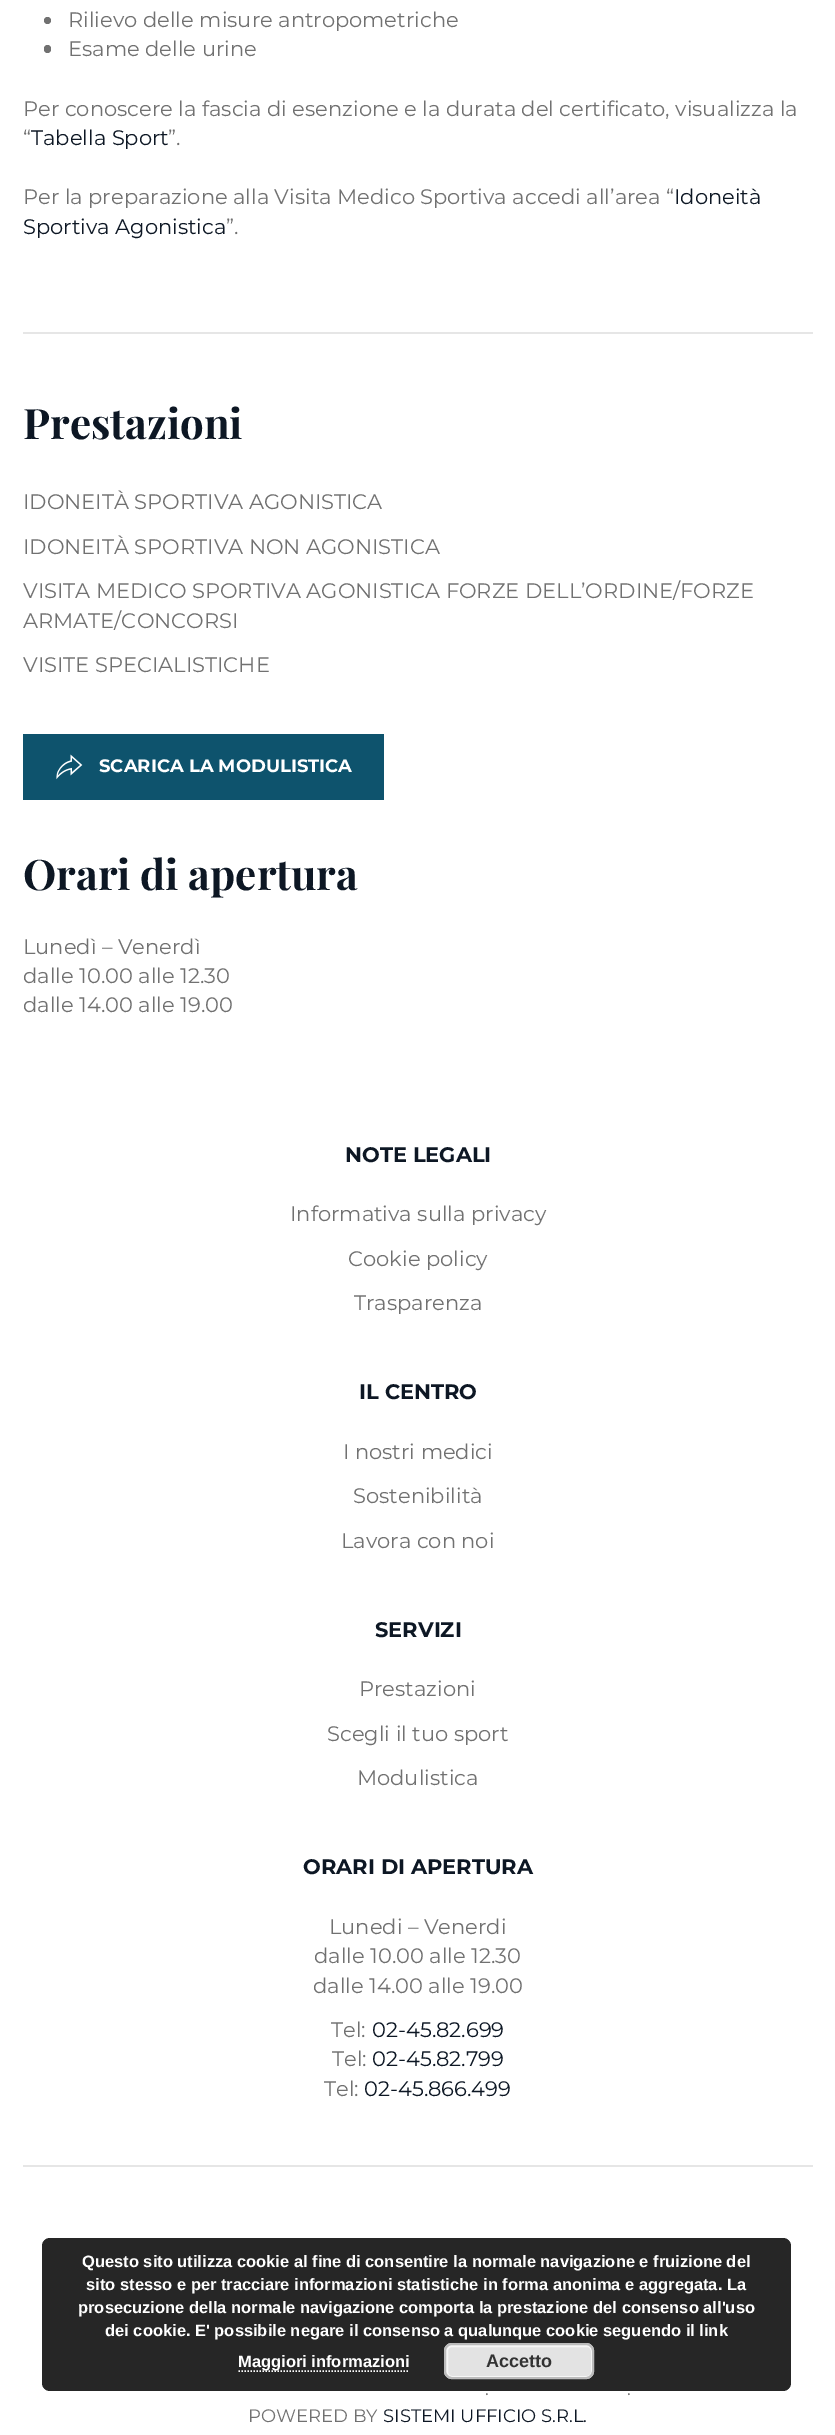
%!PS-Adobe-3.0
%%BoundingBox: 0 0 835 2435
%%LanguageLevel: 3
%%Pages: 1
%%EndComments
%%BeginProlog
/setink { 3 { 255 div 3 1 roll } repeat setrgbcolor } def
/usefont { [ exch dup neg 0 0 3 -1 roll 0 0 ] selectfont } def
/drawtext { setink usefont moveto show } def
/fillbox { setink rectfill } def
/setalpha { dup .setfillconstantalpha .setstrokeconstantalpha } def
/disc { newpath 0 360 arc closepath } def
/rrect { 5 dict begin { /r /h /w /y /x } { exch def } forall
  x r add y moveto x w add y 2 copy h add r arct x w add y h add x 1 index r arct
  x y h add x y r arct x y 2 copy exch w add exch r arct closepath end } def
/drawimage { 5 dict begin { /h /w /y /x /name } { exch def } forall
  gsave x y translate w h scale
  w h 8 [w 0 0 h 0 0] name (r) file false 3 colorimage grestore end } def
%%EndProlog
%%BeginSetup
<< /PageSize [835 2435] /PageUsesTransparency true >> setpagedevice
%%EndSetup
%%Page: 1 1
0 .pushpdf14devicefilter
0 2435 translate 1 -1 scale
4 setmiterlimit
0 0 835 2435 255 255 255 fillbox
113 113 113 setink
47.5 20.5 3.5 disc fill
(Rilievo delle misure antropometriche) 68 27 /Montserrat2-Thin 21 113 113 113 drawtext
44 45 7 8 3.5 rrect fill
(Esame delle urine) 68 56 /Montserrat2-Thin 21 113 113 113 drawtext
(Per conoscere la fascia di esenzione e la durata del certificato, visualizza la) 23 116 /Montserrat2-Thin 21 113 113 113 drawtext
(“) 23 145 /Montserrat2-Thin 21 113 113 113 drawtext
(Tabella Sport) 31 145 /Montserrat2-Thin 21 13 23 36 drawtext
(”.) 168 145 /Montserrat2-Thin 21 113 113 113 drawtext
(Per la preparazione alla Visita Medico Sportiva accedi all’area “) 23 204 /Montserrat2-Thin 21 113 113 113 drawtext
(Idoneità) 674 204 /Montserrat2-Thin 21 13 23 36 drawtext
(Sportiva Agonistica) 23 234 /Montserrat2-Thin 21 13 23 36 drawtext
(”.) 226 234 /Montserrat2-Thin 21 113 113 113 drawtext
23 332 790 2 230 230 230 fillbox
(Prestazioni) 23 439 /PlayfairDisplay-Bold 42 13 23 36 drawtext
(IDONEITÀ SPORTIVA AGONISTICA) 23 509 /Montserrat2-Thin 21 113 113 113 drawtext
(IDONEITÀ SPORTIVA NON AGONISTICA) 23 554 /Montserrat2-Thin 21 113 113 113 drawtext
(VISITA MEDICO SPORTIVA AGONISTICA FORZE DELL’ORDINE/FORZE) 23 598 /Montserrat2-Thin 21 113 113 113 drawtext
(ARMATE/CONCORSI) 23 628 /Montserrat2-Thin 21 113 113 113 drawtext
(VISITE SPECIALISTICHE) 23 672 /Montserrat2-Thin 21 113 113 113 drawtext
23 734 361 66 14 83 109 fillbox
(assets/img1.rgb) 56 754 27 26 drawimage
(SCARICA LA MODULISTICA) 99 772 /Montserrat-Thin 18 255 255 255 drawtext
(Orari di apertura) 23 890 /PlayfairDisplay-Bold 42 13 23 36 drawtext
(Lunedì – Venerdì) 23 954 /Montserrat2-Thin 21 113 113 113 drawtext
(dalle 10.00 alle 12.30) 23 983 /Montserrat2-Thin 21 113 113 113 drawtext
(dalle 14.00 alle 19.00) 23 1012 /Montserrat2-Thin 21 113 113 113 drawtext
(NOTE LEGALI) 345 1162 /Montserrat-Thin 21 13 23 36 drawtext
(Informativa sulla privacy) 290 1221 /Montserrat2-Thin 21 113 113 113 drawtext
(Cookie policy) 348 1266 /Montserrat2-Thin 21 113 113 113 drawtext
(Trasparenza) 354 1310 /Montserrat2-Thin 21 113 113 113 drawtext
(IL CENTRO) 359 1399 /Montserrat-Thin 21 13 23 36 drawtext
(I nostri medici) 343 1459 /Montserrat2-Thin 21 113 113 113 drawtext
(Sostenibilità) 353 1503 /Montserrat2-Thin 21 113 113 113 drawtext
(Lavora con noi) 341 1548 /Montserrat2-Thin 21 113 113 113 drawtext
(SERVIZI) 375 1637 /Montserrat-Thin 21 13 23 36 drawtext
(Prestazioni) 359 1696 /Montserrat2-Thin 21 113 113 113 drawtext
(Scegli il tuo sport) 327 1741 /Montserrat2-Thin 21 113 113 113 drawtext
(Modulistica) 357 1785 /Montserrat2-Thin 21 113 113 113 drawtext
(ORARI DI APERTURA) 303 1874 /Montserrat-Thin 21 13 23 36 drawtext
(Lunedi – Venerdi) 329 1934 /Montserrat2-Thin 21 113 113 113 drawtext
(dalle 10.00 alle 12.30) 314 1963 /Montserrat2-Thin 21 113 113 113 drawtext
(dalle 14.00 alle 19.00) 313 1993 /Montserrat2-Thin 21 113 113 113 drawtext
(Tel:) 331 2037 /Montserrat2-Thin 21 113 113 113 drawtext
(02-45.82.699) 372 2037 /Montserrat2-Thin 21 13 23 36 drawtext
(Tel:) 332 2066 /Montserrat2-Thin 21 113 113 113 drawtext
(02-45.82.799) 372 2066 /Montserrat2-Thin 21 13 23 36 drawtext
(Tel:) 324 2096 /Montserrat2-Thin 21 113 113 113 drawtext
(02-45.866.499) 364 2096 /Montserrat2-Thin 21 13 23 36 drawtext
23 2165 790 2 230 230 230 fillbox
(.) 485 2395 /Montserrat2-Thin 18 113 113 113 drawtext
(.) 627 2395 /Montserrat2-Thin 18 113 113 113 drawtext
(POWERED BY) 248 2422 /Montserrat2-Thin 18 113 113 113 drawtext
(SISTEMI UFFICIO S.R.L.) 383 2422 /Montserrat2-Thin 18 13 23 36 drawtext
0.85 setalpha
0 0 0 setink
42 2238 749 153 8 rrect fill
1 setalpha
(Questo sito utilizza cookie al fine di consentire la normale navigazione e fruizione del) 82 2267 /LiberationSans-Bold 16.5 255 255 255 drawtext
(sito stesso e per tracciare informazioni statistiche in forma anonima e aggregata. La) 86 2290 /LiberationSans-Bold 16.5 255 255 255 drawtext
(prosecuzione della normale navigazione comporta la prestazione del consenso all'uso) 78 2313 /LiberationSans-Bold 16.5 255 255 255 drawtext
(dei cookie. E' possibile negare il consenso a qualunque cookie seguendo il link) 105 2336 /LiberationSans-Bold 16.5 255 255 255 drawtext
1.5 setlinewidth
[1.5 1.5] 0 setdash
238.5 2371 moveto 409.5 2371 lineto stroke
(Maggiori informazioni) 238 2367 /LiberationSans-Bold 16.5 255 255 255 drawtext
227 227 227 setink
444 2343 150 36 8 rrect fill
246 246 246 setink
2 setlinewidth
[] 0 setdash
447 2346 145 31 5 rrect stroke
187 187 187 setink
445 2344 148 34 7 rrect stroke
(Accetto) 486 2367 /LiberationSans-Bold 18 51 51 51 drawtext
.poppdf14devicefilter showpage
%%EOF
